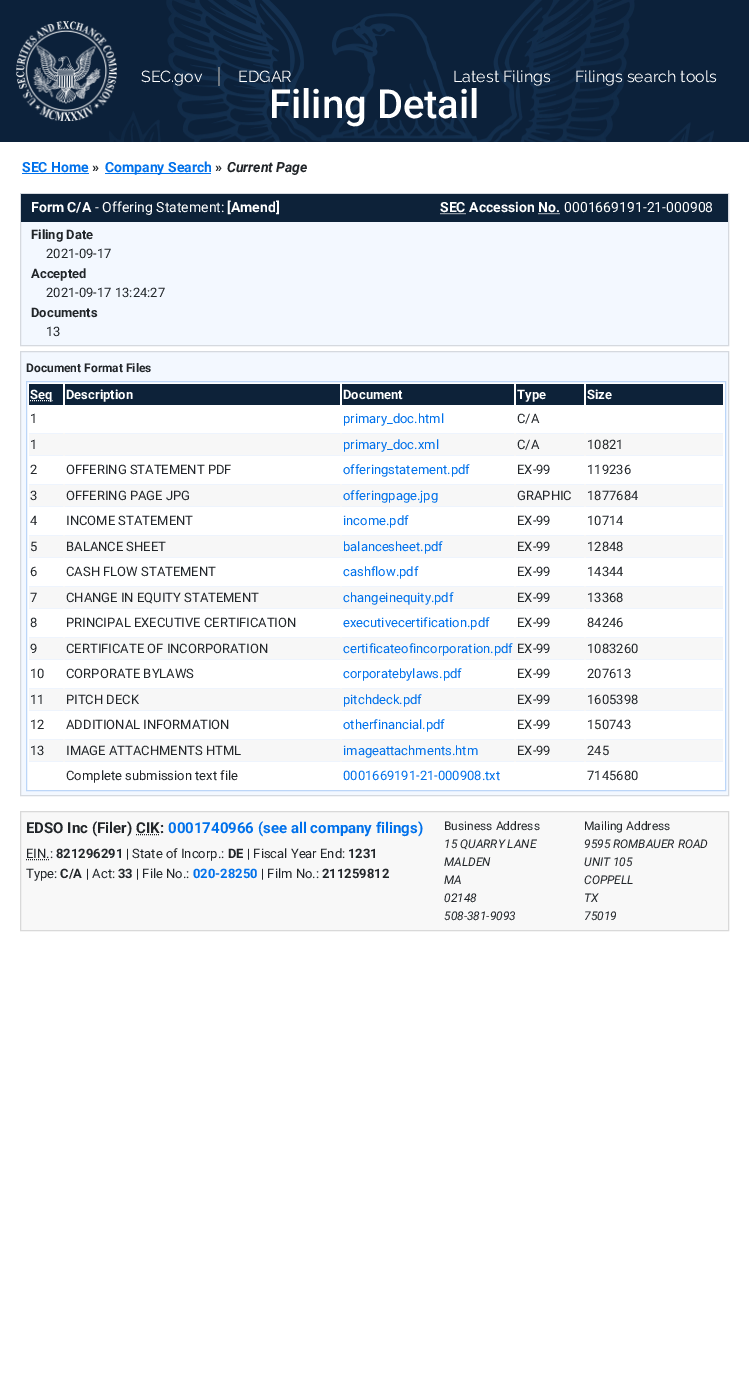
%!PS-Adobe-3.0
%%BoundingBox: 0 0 749 1396
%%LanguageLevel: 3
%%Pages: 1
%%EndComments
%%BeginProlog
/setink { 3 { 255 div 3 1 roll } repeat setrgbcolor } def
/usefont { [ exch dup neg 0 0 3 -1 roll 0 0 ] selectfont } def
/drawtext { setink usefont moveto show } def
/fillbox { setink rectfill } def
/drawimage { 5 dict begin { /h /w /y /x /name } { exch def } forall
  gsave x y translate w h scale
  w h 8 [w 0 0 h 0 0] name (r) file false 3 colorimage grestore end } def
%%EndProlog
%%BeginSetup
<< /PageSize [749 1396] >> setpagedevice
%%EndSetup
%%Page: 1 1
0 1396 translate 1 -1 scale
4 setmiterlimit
0 0 749 1396 255 255 255 fillbox
0 0 749 142 12 33 58 fillbox
(assets/img1.rgb) 109 0 605 142 drawimage
(assets/img2.rgb) 16 21 101 100 drawimage
(SEC.gov) 141 82 /Raleway-Regular 16 255 255 255 drawtext
218 67 2 19 112 121 130 fillbox
(EDGAR) 238 82 /Raleway-Regular 16 255 255 255 drawtext
(Latest Filings) 453 82 /Raleway-Regular 16 255 255 255 drawtext
(Filings search tools) 575 82 /Raleway-Regular 16 255 255 255 drawtext
(Filing Detail) 269 118 /Roboto-Medium 40 255 255 255 drawtext
(SEC Home) 22 172 /Roboto-Bold 14 0 113 235 drawtext
22 173 67 1 0 113 235 fillbox
(») 92 172 /Roboto-Bold 14 33 37 41 drawtext
105 173 106 1 0 113 235 fillbox
(Company Search) 105 172 /Roboto-Bold 14 0 113 235 drawtext
(») 215 172 /Roboto-Bold 14 33 37 41 drawtext
(Current Page) 227 172 /Roboto-BoldItalic 14 33 37 41 drawtext
21 222 707 123 243 248 255 fillbox
213 217 223 setink
20.5 193.5 708 152 rectstroke
21 194 707 28 13 34 57 fillbox
(Form C/A) 31 212 /Roboto-Bold 14 255 255 255 drawtext
(- Offering Statement:) 95 212 /Roboto-Regular 14 255 255 255 drawtext
([Amend]) 227 212 /Roboto-Bold 14 255 255 255 drawtext
(SEC Accession No.) 440 212 /Roboto-Bold 14 255 255 255 drawtext
[1 1] 0 setdash
440.5 213.5 moveto 466 213.5 lineto stroke
538.5 213.5 moveto 560 213.5 lineto stroke
(0001669191-21-000908) 564 212 /Roboto-Regular 14 255 255 255 drawtext
(Filing Date) 31 239 /Roboto-Bold 13 33 37 41 drawtext
(2021-09-17) 46 258 /Roboto-Regular 13 33 37 41 drawtext
(Accepted) 31 278 /Roboto-Bold 13 33 37 41 drawtext
(2021-09-17 13:24:27) 46 297 /Roboto-Regular 13 33 37 41 drawtext
(Documents) 31 317 /Roboto-Bold 13 33 37 41 drawtext
(13) 46 336 /Roboto-Regular 13 33 37 41 drawtext
243 248 255 setink
20.5 351.5 moveto 728.5 351.5 lineto 728.5 795.5 lineto 20.5 795.5 lineto closepath gsave fill grestore
213 217 223 setink
[] 0 setdash
stroke
(Document Format Files) 26 372 /Roboto-Bold 12 33 37 41 drawtext
255 255 255 setink
26.5 381.5 moveto 725.5 381.5 lineto 725.5 790.5 lineto 26.5 790.5 lineto closepath gsave fill grestore
188 214 248 setink
stroke
29 384 34 21 13 34 57 fillbox
255 255 255 setink
[1 1] 0 setdash
30 400.5 moveto 52.5 400.5 lineto stroke
(Seq) 30 399 /Roboto-Bold 13 255 255 255 drawtext
65 384 275 21 13 34 57 fillbox
(Description) 66 399 /Roboto-Bold 13 255 255 255 drawtext
342 384 172 21 13 34 57 fillbox
(Document) 343 399 /Roboto-Bold 13 255 255 255 drawtext
516 384 68 21 13 34 57 fillbox
(Type) 517 399 /Roboto-Bold 13 255 255 255 drawtext
586 384 137 21 13 34 57 fillbox
(Size) 587 399 /Roboto-Bold 13 255 255 255 drawtext
(1) 30 423 /Roboto-Regular 13 33 37 41 drawtext
(primary_doc.html) 343 423 /Roboto-Regular 13 0 113 235 drawtext
(C/A) 517 423 /Roboto-Regular 13 33 37 41 drawtext
29 433 694 23 247 247 247 fillbox
29 433 34 1 238 244 253 fillbox
29 455 34 1 238 244 253 fillbox
(1) 30 449 /Roboto-Regular 13 33 37 41 drawtext
65 433 275 1 238 244 253 fillbox
65 455 275 1 238 244 253 fillbox
342 433 172 1 238 244 253 fillbox
342 455 172 1 238 244 253 fillbox
(primary_doc.xml) 343 449 /Roboto-Regular 13 0 113 235 drawtext
516 433 68 1 238 244 253 fillbox
516 455 68 1 238 244 253 fillbox
(C/A) 517 449 /Roboto-Regular 13 33 37 41 drawtext
586 433 137 1 238 244 253 fillbox
586 455 137 1 238 244 253 fillbox
(10821) 587 449 /Roboto-Regular 13 33 37 41 drawtext
(2) 30 474 /Roboto-Regular 13 33 37 41 drawtext
(OFFERING STATEMENT PDF) 66 474 /Roboto-Regular 13 33 37 41 drawtext
(offeringstatement.pdf) 343 474 /Roboto-Regular 13 0 113 235 drawtext
(EX-99) 517 474 /Roboto-Regular 13 33 37 41 drawtext
(119236) 587 474 /Roboto-Regular 13 33 37 41 drawtext
29 484 694 23 247 247 247 fillbox
29 484 34 1 238 244 253 fillbox
29 506 34 1 238 244 253 fillbox
(3) 30 500 /Roboto-Regular 13 33 37 41 drawtext
65 484 275 1 238 244 253 fillbox
65 506 275 1 238 244 253 fillbox
(OFFERING PAGE JPG) 66 500 /Roboto-Regular 13 33 37 41 drawtext
342 484 172 1 238 244 253 fillbox
342 506 172 1 238 244 253 fillbox
(offeringpage.jpg) 343 500 /Roboto-Regular 13 0 113 235 drawtext
516 484 68 1 238 244 253 fillbox
516 506 68 1 238 244 253 fillbox
(GRAPHIC) 517 500 /Roboto-Regular 13 33 37 41 drawtext
586 484 137 1 238 244 253 fillbox
586 506 137 1 238 244 253 fillbox
(1877684) 587 500 /Roboto-Regular 13 33 37 41 drawtext
(4) 30 525 /Roboto-Regular 13 33 37 41 drawtext
(INCOME STATEMENT) 66 525 /Roboto-Regular 13 33 37 41 drawtext
(income.pdf) 343 525 /Roboto-Regular 13 0 113 235 drawtext
(EX-99) 517 525 /Roboto-Regular 13 33 37 41 drawtext
(10714) 587 525 /Roboto-Regular 13 33 37 41 drawtext
29 535 694 23 247 247 247 fillbox
29 535 34 1 238 244 253 fillbox
29 557 34 1 238 244 253 fillbox
(5) 30 551 /Roboto-Regular 13 33 37 41 drawtext
65 535 275 1 238 244 253 fillbox
65 557 275 1 238 244 253 fillbox
(BALANCE SHEET) 66 551 /Roboto-Regular 13 33 37 41 drawtext
342 535 172 1 238 244 253 fillbox
342 557 172 1 238 244 253 fillbox
(balancesheet.pdf) 343 551 /Roboto-Regular 13 0 113 235 drawtext
516 535 68 1 238 244 253 fillbox
516 557 68 1 238 244 253 fillbox
(EX-99) 517 551 /Roboto-Regular 13 33 37 41 drawtext
586 535 137 1 238 244 253 fillbox
586 557 137 1 238 244 253 fillbox
(12848) 587 551 /Roboto-Regular 13 33 37 41 drawtext
(6) 30 576 /Roboto-Regular 13 33 37 41 drawtext
(CASH FLOW STATEMENT) 66 576 /Roboto-Regular 13 33 37 41 drawtext
(cashflow.pdf) 343 576 /Roboto-Regular 13 0 113 235 drawtext
(EX-99) 517 576 /Roboto-Regular 13 33 37 41 drawtext
(14344) 587 576 /Roboto-Regular 13 33 37 41 drawtext
29 586 694 23 247 247 247 fillbox
29 586 34 1 238 244 253 fillbox
29 608 34 1 238 244 253 fillbox
(7) 30 602 /Roboto-Regular 13 33 37 41 drawtext
65 586 275 1 238 244 253 fillbox
65 608 275 1 238 244 253 fillbox
(CHANGE IN EQUITY STATEMENT) 66 602 /Roboto-Regular 13 33 37 41 drawtext
342 586 172 1 238 244 253 fillbox
342 608 172 1 238 244 253 fillbox
(changeinequity.pdf) 343 602 /Roboto-Regular 13 0 113 235 drawtext
516 586 68 1 238 244 253 fillbox
516 608 68 1 238 244 253 fillbox
(EX-99) 517 602 /Roboto-Regular 13 33 37 41 drawtext
586 586 137 1 238 244 253 fillbox
586 608 137 1 238 244 253 fillbox
(13368) 587 602 /Roboto-Regular 13 33 37 41 drawtext
(8) 30 627 /Roboto-Regular 13 33 37 41 drawtext
(PRINCIPAL EXECUTIVE CERTIFICATION) 66 627 /Roboto-Regular 13 33 37 41 drawtext
(executivecertification.pdf) 343 627 /Roboto-Regular 13 0 113 235 drawtext
(EX-99) 517 627 /Roboto-Regular 13 33 37 41 drawtext
(84246) 587 627 /Roboto-Regular 13 33 37 41 drawtext
29 637 694 23 247 247 247 fillbox
29 637 34 1 238 244 253 fillbox
29 659 34 1 238 244 253 fillbox
(9) 30 653 /Roboto-Regular 13 33 37 41 drawtext
65 637 275 1 238 244 253 fillbox
65 659 275 1 238 244 253 fillbox
(CERTIFICATE OF INCORPORATION) 66 653 /Roboto-Regular 13 33 37 41 drawtext
342 637 172 1 238 244 253 fillbox
342 659 172 1 238 244 253 fillbox
(certificateofincorporation.pdf) 343 653 /Roboto-Regular 13 0 113 235 drawtext
516 637 68 1 238 244 253 fillbox
516 659 68 1 238 244 253 fillbox
(EX-99) 517 653 /Roboto-Regular 13 33 37 41 drawtext
586 637 137 1 238 244 253 fillbox
586 659 137 1 238 244 253 fillbox
(1083260) 587 653 /Roboto-Regular 13 33 37 41 drawtext
(10) 30 678 /Roboto-Regular 13 33 37 41 drawtext
(CORPORATE BYLAWS) 66 678 /Roboto-Regular 13 33 37 41 drawtext
(corporatebylaws.pdf) 343 678 /Roboto-Regular 13 0 113 235 drawtext
(EX-99) 517 678 /Roboto-Regular 13 33 37 41 drawtext
(207613) 587 678 /Roboto-Regular 13 33 37 41 drawtext
29 688 694 23 247 247 247 fillbox
29 688 34 1 238 244 253 fillbox
29 710 34 1 238 244 253 fillbox
(11) 30 704 /Roboto-Regular 13 33 37 41 drawtext
65 688 275 1 238 244 253 fillbox
65 710 275 1 238 244 253 fillbox
(PITCH DECK) 66 704 /Roboto-Regular 13 33 37 41 drawtext
342 688 172 1 238 244 253 fillbox
342 710 172 1 238 244 253 fillbox
(pitchdeck.pdf) 343 704 /Roboto-Regular 13 0 113 235 drawtext
516 688 68 1 238 244 253 fillbox
516 710 68 1 238 244 253 fillbox
(EX-99) 517 704 /Roboto-Regular 13 33 37 41 drawtext
586 688 137 1 238 244 253 fillbox
586 710 137 1 238 244 253 fillbox
(1605398) 587 704 /Roboto-Regular 13 33 37 41 drawtext
(12) 30 729 /Roboto-Regular 13 33 37 41 drawtext
(ADDITIONAL INFORMATION) 66 729 /Roboto-Regular 13 33 37 41 drawtext
(otherfinancial.pdf) 343 729 /Roboto-Regular 13 0 113 235 drawtext
(EX-99) 517 729 /Roboto-Regular 13 33 37 41 drawtext
(150743) 587 729 /Roboto-Regular 13 33 37 41 drawtext
29 739 694 23 247 247 247 fillbox
29 739 34 1 238 244 253 fillbox
29 761 34 1 238 244 253 fillbox
(13) 30 755 /Roboto-Regular 13 33 37 41 drawtext
65 739 275 1 238 244 253 fillbox
65 761 275 1 238 244 253 fillbox
(IMAGE ATTACHMENTS HTML) 66 755 /Roboto-Regular 13 33 37 41 drawtext
342 739 172 1 238 244 253 fillbox
342 761 172 1 238 244 253 fillbox
(imageattachments.htm) 343 755 /Roboto-Regular 13 0 113 235 drawtext
516 739 68 1 238 244 253 fillbox
516 761 68 1 238 244 253 fillbox
(EX-99) 517 755 /Roboto-Regular 13 33 37 41 drawtext
586 739 137 1 238 244 253 fillbox
586 761 137 1 238 244 253 fillbox
(245) 587 755 /Roboto-Regular 13 33 37 41 drawtext
(Complete submission text file) 66 780 /Roboto-Regular 13 33 37 41 drawtext
(0001669191-21-000908.txt) 343 780 /Roboto-Regular 13 0 113 235 drawtext
(7145680) 587 780 /Roboto-Regular 13 33 37 41 drawtext
248 248 248 setink
20.5 811.5 moveto 728.5 811.5 lineto 728.5 930.5 lineto 20.5 930.5 lineto closepath gsave fill grestore
217 217 217 setink
[] 0 setdash
stroke
(EDSO Inc \(Filer\) CIK:) 26 833 /Roboto-Bold 15 33 37 41 drawtext
(0001740966 \(see all company filings\)) 168 833 /Roboto-Bold 15 0 113 235 drawtext
33 37 41 setink
[1 1] 0 setdash
136 834.5 moveto 159.5 834.5 lineto stroke
(EIN.:) 26 858 /Roboto-Regular 13 33 37 41 drawtext
26 859.5 moveto 49.5 859.5 lineto stroke
(821296291) 56 858 /Roboto-Bold 13 33 37 41 drawtext
(| State of Incorp.:) 126 858 /Roboto-Regular 13 33 37 41 drawtext
(DE) 228 858 /Roboto-Bold 13 33 37 41 drawtext
(| Fiscal Year End:) 247 858 /Roboto-Regular 13 33 37 41 drawtext
(1231) 348 858 /Roboto-Bold 13 33 37 41 drawtext
(Type:) 26 878 /Roboto-Regular 13 33 37 41 drawtext
(C/A) 60 878 /Roboto-Bold 13 33 37 41 drawtext
(| Act:) 86 878 /Roboto-Regular 13 33 37 41 drawtext
(33) 118 878 /Roboto-Bold 13 33 37 41 drawtext
(| File No.:) 136 878 /Roboto-Regular 13 33 37 41 drawtext
(020-28250) 193 878 /Roboto-Bold 13 0 113 235 drawtext
(| Film No.:) 261 878 /Roboto-Regular 13 33 37 41 drawtext
(211259812) 322 878 /Roboto-Bold 13 33 37 41 drawtext
(Business Address) 444 830 /Roboto-Regular 12 33 37 41 drawtext
(15 QUARRY LANE) 444 848 /Roboto-Italic 12 33 37 41 drawtext
(MALDEN) 444 866 /Roboto-Italic 12 33 37 41 drawtext
(MA) 444 884 /Roboto-Italic 12 33 37 41 drawtext
(02148) 444 902 /Roboto-Italic 12 33 37 41 drawtext
(508-381-9093) 444 920 /Roboto-Italic 12 33 37 41 drawtext
(Mailing Address) 584 830 /Roboto-Regular 12 33 37 41 drawtext
(9595 ROMBAUER ROAD) 584 848 /Roboto-Italic 12 33 37 41 drawtext
(UNIT 105) 584 866 /Roboto-Italic 12 33 37 41 drawtext
(COPPELL) 584 884 /Roboto-Italic 12 33 37 41 drawtext
(TX) 584 902 /Roboto-Italic 12 33 37 41 drawtext
(75019) 584 920 /Roboto-Italic 12 33 37 41 drawtext
showpage
%%EOF
